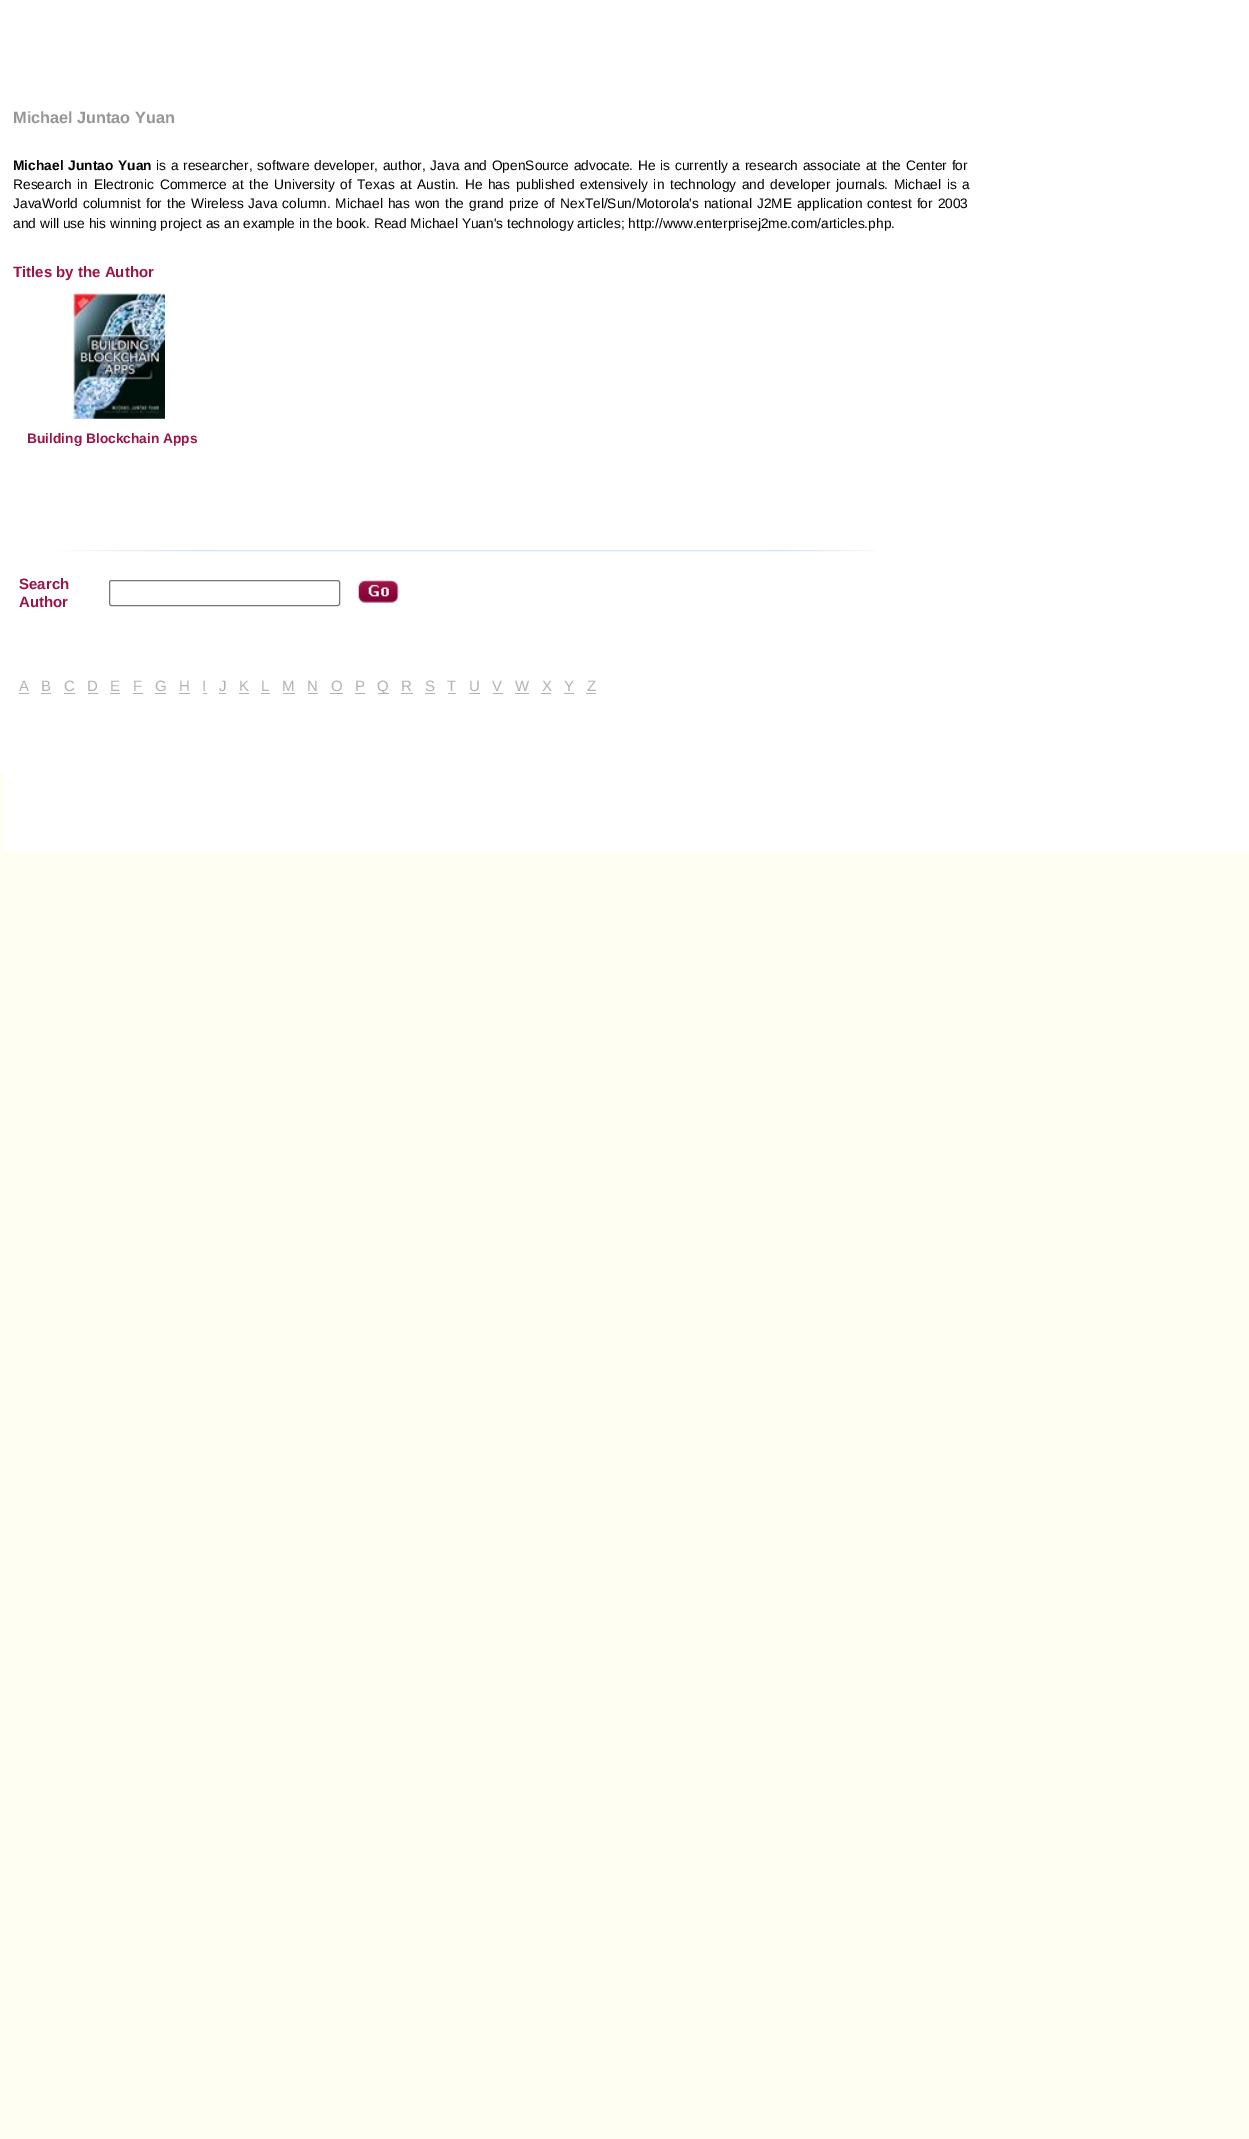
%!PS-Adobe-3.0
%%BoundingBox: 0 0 1249 2139
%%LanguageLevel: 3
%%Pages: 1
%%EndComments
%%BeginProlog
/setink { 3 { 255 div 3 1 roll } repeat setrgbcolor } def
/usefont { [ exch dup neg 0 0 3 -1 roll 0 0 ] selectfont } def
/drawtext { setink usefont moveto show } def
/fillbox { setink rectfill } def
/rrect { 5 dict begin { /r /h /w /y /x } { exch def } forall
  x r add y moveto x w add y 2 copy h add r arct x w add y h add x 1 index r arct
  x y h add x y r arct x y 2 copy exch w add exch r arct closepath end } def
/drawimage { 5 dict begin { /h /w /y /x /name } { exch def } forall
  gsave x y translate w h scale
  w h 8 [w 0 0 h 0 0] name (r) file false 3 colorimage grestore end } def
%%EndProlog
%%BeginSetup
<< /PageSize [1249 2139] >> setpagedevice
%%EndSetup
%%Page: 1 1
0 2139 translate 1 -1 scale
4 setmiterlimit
0 0 1249 2139 255 254 242 fillbox
0 0 1249 773 255 255 255 fillbox
(Michael Juntao Yuan) 13 123 /LiberationSans-Bold 16.25 149 149 149 drawtext
/LiberationSans-Bold 13.75 usefont
0 0 0 setink
13 170 moveto 1 0 32 (Michael Juntao Yuan) widthshow
/LiberationSans-Regular 13.75 usefont
156 170 moveto 0.9 0 32 (is a researcher, software developer, author, Java and OpenSource advocate. He is currently a research associate at the Center for) widthshow
13 189 moveto 1.75 0 32 (Research in Electronic Commerce at the University of Texas at Austin. He has published extensively in technology and developer journals. Michael is a) widthshow
13 208 moveto 1.1 0 32 (JavaWorld columnist for the Wireless Java column. Michael has won the grand prize of NexTel/Sun/Motorola's national J2ME application contest for 2003) widthshow
(and will use his winning project as an example in the book. Read Michael Yuan's technology articles; http://www.enterprisej2me.com/articles.php.) 13 228 /LiberationSans-Regular 13.75 0 0 0 drawtext
(Titles by the Author) 13 277 /LiberationSans-Bold 15 157 19 71 drawtext
(assets/img1.rgb) 73 293 92 126 drawimage
(Building Blockchain Apps) 27 443 /LiberationSans-Bold 13.75 157 19 71 drawtext
(assets/img2.rgb) 57 550 818 2 drawimage
(Search) 19 589 /LiberationSans-Bold 15 157 19 71 drawtext
(Author) 19 607 /LiberationSans-Bold 15 157 19 71 drawtext
118 118 118 setink
109.5 580.5 230 25 2 rrect stroke
(assets/img3.rgb) 358 580 41 23 drawimage
(A) 19 691 /LiberationSans-Regular 15 178 178 178 drawtext
19 693 10 1 178 178 178 fillbox
(B) 41 691 /LiberationSans-Regular 15 178 178 178 drawtext
41 693 10 1 178 178 178 fillbox
(C) 64 691 /LiberationSans-Regular 15 178 178 178 drawtext
64 693 11 1 178 178 178 fillbox
(D) 87 691 /LiberationSans-Regular 15 178 178 178 drawtext
88 693 10 1 178 178 178 fillbox
(E) 110 691 /LiberationSans-Regular 15 178 178 178 drawtext
110 693 10 1 178 178 178 fillbox
(F) 133 691 /LiberationSans-Regular 15 178 178 178 drawtext
133 693 10 1 178 178 178 fillbox
(G) 155 691 /LiberationSans-Regular 15 178 178 178 drawtext
155 693 11 1 178 178 178 fillbox
(H) 179 691 /LiberationSans-Regular 15 178 178 178 drawtext
179 693 11 1 178 178 178 fillbox
(I) 202 691 /LiberationSans-Regular 15 178 178 178 drawtext
203 693 4 1 178 178 178 fillbox
(J) 219 691 /LiberationSans-Regular 15 178 178 178 drawtext
219 693 7 1 178 178 178 fillbox
(K) 239 691 /LiberationSans-Regular 15 178 178 178 drawtext
239 693 10 1 178 178 178 fillbox
(L) 261 691 /LiberationSans-Regular 15 178 178 178 drawtext
261 693 9 1 178 178 178 fillbox
(M) 282 691 /LiberationSans-Regular 15 178 178 178 drawtext
283 693 12 1 178 178 178 fillbox
(N) 307 691 /LiberationSans-Regular 15 178 178 178 drawtext
308 693 10 1 178 178 178 fillbox
(O) 331 691 /LiberationSans-Regular 15 178 178 178 drawtext
330 693 13 1 178 178 178 fillbox
(P) 355 691 /LiberationSans-Regular 15 178 178 178 drawtext
355 693 10 1 178 178 178 fillbox
378 693 11 1 178 178 178 fillbox
(Q) 377 691 /LiberationSans-Regular 15 178 178 178 drawtext
(R) 401 691 /LiberationSans-Regular 15 178 178 178 drawtext
401 693 12 1 178 178 178 fillbox
(S) 425 691 /LiberationSans-Regular 15 178 178 178 drawtext
425 693 10 1 178 178 178 fillbox
(T) 447 691 /LiberationSans-Regular 15 178 178 178 drawtext
448 693 8 1 178 178 178 fillbox
(U) 469 691 /LiberationSans-Regular 15 178 178 178 drawtext
469 693 11 1 178 178 178 fillbox
(V) 492 691 /LiberationSans-Regular 15 178 178 178 drawtext
493 693 10 1 178 178 178 fillbox
(W) 515 691 /LiberationSans-Regular 15 178 178 178 drawtext
515 693 14 1 178 178 178 fillbox
(X) 542 691 /LiberationSans-Regular 15 178 178 178 drawtext
541 693 10 1 178 178 178 fillbox
(Y) 564 691 /LiberationSans-Regular 15 178 178 178 drawtext
564 693 10 1 178 178 178 fillbox
(Z) 587 691 /LiberationSans-Regular 15 178 178 178 drawtext
586 693 10 1 178 178 178 fillbox
4 773 1245 78 255 255 255 fillbox
showpage
%%EOF
